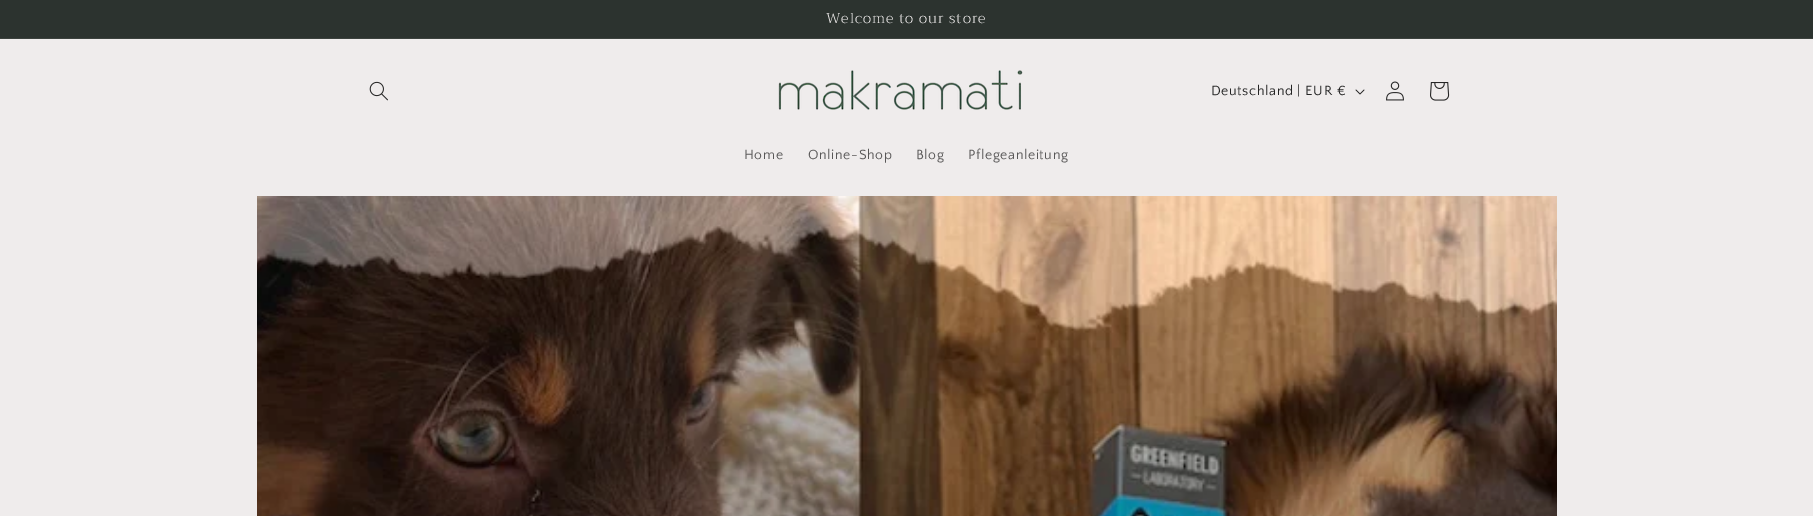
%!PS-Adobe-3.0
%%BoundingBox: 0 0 1813 516
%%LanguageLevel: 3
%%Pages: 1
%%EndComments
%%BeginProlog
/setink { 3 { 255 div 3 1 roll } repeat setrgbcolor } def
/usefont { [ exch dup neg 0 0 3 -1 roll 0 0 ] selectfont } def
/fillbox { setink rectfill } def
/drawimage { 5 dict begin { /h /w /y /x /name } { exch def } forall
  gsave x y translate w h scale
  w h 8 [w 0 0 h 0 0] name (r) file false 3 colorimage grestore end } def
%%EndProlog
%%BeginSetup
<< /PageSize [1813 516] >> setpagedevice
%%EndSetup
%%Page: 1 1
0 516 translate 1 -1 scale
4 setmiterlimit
0 0 1813 516 239 236 236 fillbox
0 0 1813 38 44 51 47 fillbox
0 38 1813 1 60 66 62 fillbox
/Trirong-Light 14.25 usefont
239 236 236 setink
826 23 moveto 1 0 (Welcome to our store) ashow
(assets/img1.rgb) 369 81 19 20 drawimage
(assets/img2.rgb) 778 70 245 40 drawimage
/QuattrocentoSans-Regular 14 usefont
37 37 37 setink
1211 95 moveto 0.6 0 (Deutschland | EUR €) ashow
(assets/img3.rgb) 1355 89 10 6 drawimage
(assets/img4.rgb) 1386 81 18 20 drawimage
(assets/img5.rgb) 1430 82 20 19 drawimage
88 87 87 setink
744 159 moveto 0.6 0 (Home) ashow
808 159 moveto 0.6 0 (Online-Shop) ashow
916 159 moveto 0.6 0 (Blog) ashow
968 159 moveto 0.6 0 (Pflegeanleitung) ashow
(assets/img6.rgb) 257 196 1300 320 drawimage
showpage
%%EOF
